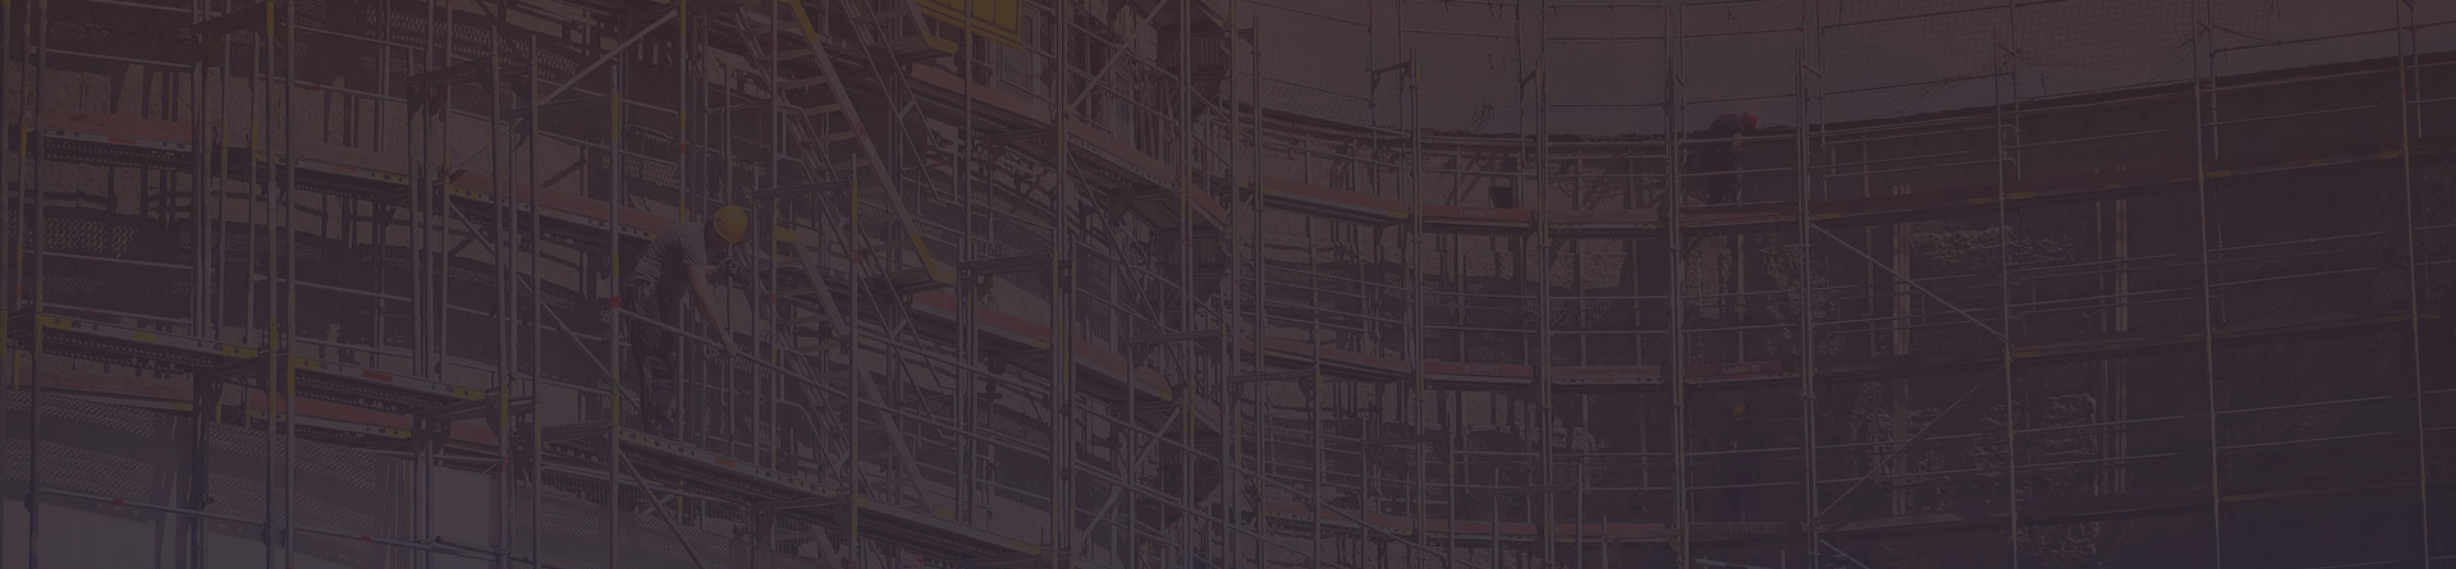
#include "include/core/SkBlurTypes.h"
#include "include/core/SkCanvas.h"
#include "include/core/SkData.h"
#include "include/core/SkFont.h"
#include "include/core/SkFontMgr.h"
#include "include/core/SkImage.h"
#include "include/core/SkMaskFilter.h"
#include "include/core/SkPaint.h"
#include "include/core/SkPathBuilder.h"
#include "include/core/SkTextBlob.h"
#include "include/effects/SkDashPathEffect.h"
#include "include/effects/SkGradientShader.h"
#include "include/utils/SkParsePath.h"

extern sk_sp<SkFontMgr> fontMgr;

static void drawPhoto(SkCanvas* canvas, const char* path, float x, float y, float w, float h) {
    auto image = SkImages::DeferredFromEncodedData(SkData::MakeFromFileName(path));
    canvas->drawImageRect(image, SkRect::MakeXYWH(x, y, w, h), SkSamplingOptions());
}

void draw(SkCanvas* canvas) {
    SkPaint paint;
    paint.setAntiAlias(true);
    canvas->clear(0xFFFFFFFF);
    drawPhoto(canvas, "assets/img1.png", 0, 0, 2456, 569);
}
